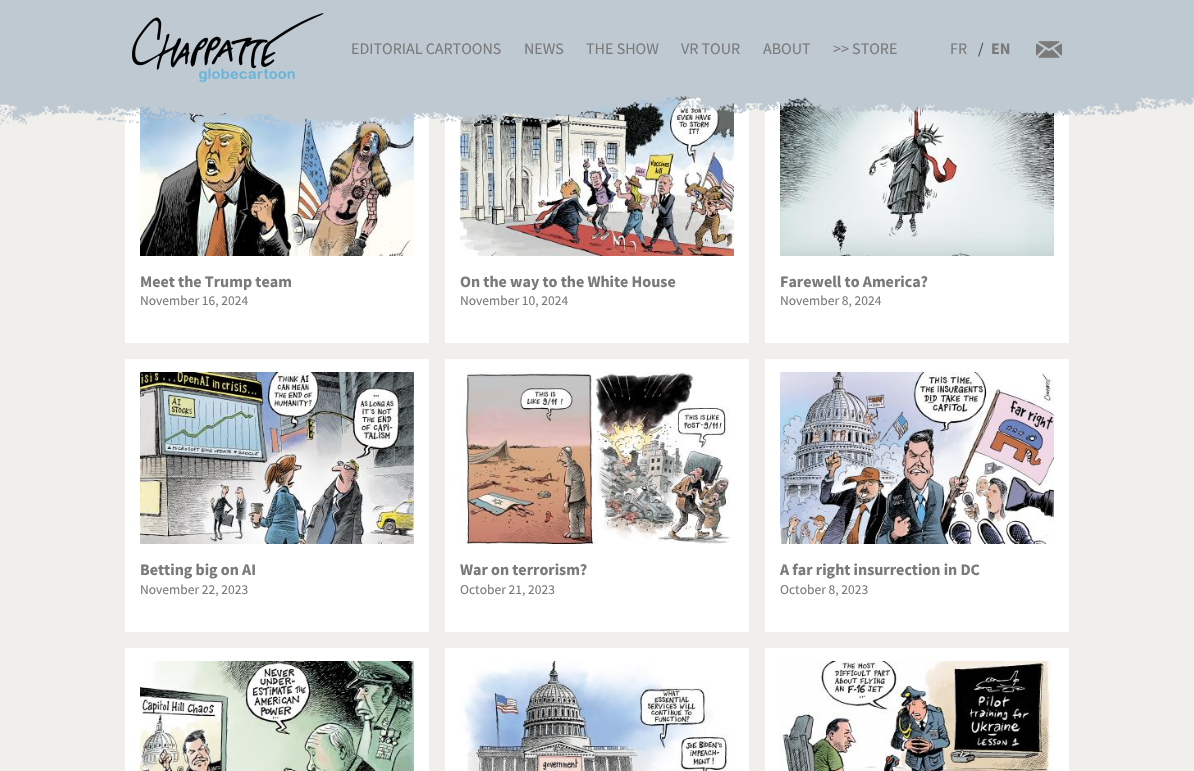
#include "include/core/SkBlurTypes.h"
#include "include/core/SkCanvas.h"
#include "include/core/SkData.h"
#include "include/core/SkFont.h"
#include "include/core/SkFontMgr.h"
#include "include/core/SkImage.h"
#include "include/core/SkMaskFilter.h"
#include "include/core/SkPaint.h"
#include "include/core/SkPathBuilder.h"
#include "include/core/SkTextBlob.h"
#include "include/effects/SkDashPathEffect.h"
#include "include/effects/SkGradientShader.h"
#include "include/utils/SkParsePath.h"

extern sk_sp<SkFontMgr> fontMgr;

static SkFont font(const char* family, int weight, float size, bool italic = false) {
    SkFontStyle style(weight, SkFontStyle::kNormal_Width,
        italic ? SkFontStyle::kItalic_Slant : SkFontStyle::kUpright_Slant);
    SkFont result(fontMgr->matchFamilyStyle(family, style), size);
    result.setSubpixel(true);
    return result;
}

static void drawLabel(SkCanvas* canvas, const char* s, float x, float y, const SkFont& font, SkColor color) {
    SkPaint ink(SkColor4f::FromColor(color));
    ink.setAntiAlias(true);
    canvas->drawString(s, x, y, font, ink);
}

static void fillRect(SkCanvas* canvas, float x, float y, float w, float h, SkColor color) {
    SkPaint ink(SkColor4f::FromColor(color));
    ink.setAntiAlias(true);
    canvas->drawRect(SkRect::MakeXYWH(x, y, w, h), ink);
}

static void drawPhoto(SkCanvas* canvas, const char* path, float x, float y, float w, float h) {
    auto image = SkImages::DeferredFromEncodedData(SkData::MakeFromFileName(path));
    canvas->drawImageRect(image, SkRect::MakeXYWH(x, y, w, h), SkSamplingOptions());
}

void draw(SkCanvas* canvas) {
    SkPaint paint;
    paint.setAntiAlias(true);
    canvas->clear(0xFFF0EFEB);
    fillRect(canvas, 0, 0, 1194, 96, 0xFFBEC9D2);
    drawPhoto(canvas, "assets/img1.png", 132, 13, 192, 69);
    SkFont font1 = font("Source Sans Pro", 400, 16);
    drawLabel(canvas, "EDITORIAL CARTOONS", 351, 54, font1, 0xFF7A7A7A);
    drawLabel(canvas, "NEWS", 524, 54, font1, 0xFF7A7A7A);
    drawLabel(canvas, "THE SHOW", 586, 54, font1, 0xFF7A7A7A);
    drawLabel(canvas, "VR TOUR", 681, 54, font1, 0xFF7A7A7A);
    drawLabel(canvas, "ABOUT", 763, 54, font1, 0xFF7A7A7A);
    drawLabel(canvas, ">> STORE", 833, 54, font1, 0xFF7A7A7A);
    drawLabel(canvas, "FR", 950, 54, font1, 0xFF7A7A7A);
    drawLabel(canvas, "/", 978, 54, font1, 0xFF484848);
    SkFont font2 = font("Source Sans Pro", 700, 16);
    drawLabel(canvas, "EN", 991, 54, font2, 0xFF7A7A7A);
    drawPhoto(canvas, "assets/img2.png", 1036, 41, 26, 17);
    fillRect(canvas, 125, 107, 304, 236, 0xFFFFFFFF);
    drawPhoto(canvas, "assets/img4.png", 140, 107, 274, 149);
    fillRect(canvas, 445, 103, 304, 240, 0xFFFFFFFF);
    drawPhoto(canvas, "assets/img5.png", 460, 96, 274, 160);
    fillRect(canvas, 765, 101, 304, 242, 0xFFFFFFFF);
    drawPhoto(canvas, "assets/img6.png", 780, 97, 274, 159);
    drawPhoto(canvas, "assets/img3.png", 0, 96, 1194, 35);
    drawLabel(canvas, "Meet the Trump team", 140, 287, font2, 0xFF7A7A7A);
    SkFont font3 = font("Source Sans Pro", 400, 13.5f);
    drawLabel(canvas, "November 16, 2024", 140, 305, font3, 0xFF7A7A7A);
    drawLabel(canvas, "On the way to the White House", 460, 287, font2, 0xFF7A7A7A);
    drawLabel(canvas, "November 10, 2024", 460, 305, font3, 0xFF7A7A7A);
    drawLabel(canvas, "Farewell to America?", 780, 287, font2, 0xFF7A7A7A);
    drawLabel(canvas, "November 8, 2024", 780, 305, font3, 0xFF7A7A7A);
    fillRect(canvas, 125, 359, 304, 273, 0xFFFFFFFF);
    drawPhoto(canvas, "assets/img7.png", 140, 372, 274, 172);
    drawLabel(canvas, "Betting big on AI", 140, 575, font2, 0xFF7A7A7A);
    drawLabel(canvas, "November 22, 2023", 140, 594, font3, 0xFF7A7A7A);
    fillRect(canvas, 445, 359, 304, 273, 0xFFFFFFFF);
    drawPhoto(canvas, "assets/img8.png", 460, 372, 271, 172);
    drawLabel(canvas, "War on terrorism?", 460, 575, font2, 0xFF7A7A7A);
    drawLabel(canvas, "October 21, 2023", 460, 594, font3, 0xFF7A7A7A);
    fillRect(canvas, 765, 359, 304, 273, 0xFFFFFFFF);
    drawPhoto(canvas, "assets/img9.png", 780, 372, 274, 172);
    drawLabel(canvas, "A far right insurrection in DC", 780, 575, font2, 0xFF7A7A7A);
    drawLabel(canvas, "October 8, 2023", 780, 594, font3, 0xFF7A7A7A);
    fillRect(canvas, 125, 648, 304, 123, 0xFFFFFFFF);
    drawPhoto(canvas, "assets/img10.png", 140, 661, 274, 110);
    fillRect(canvas, 445, 648, 304, 123, 0xFFFFFFFF);
    drawPhoto(canvas, "assets/img11.png", 460, 661, 269, 110);
    fillRect(canvas, 765, 648, 304, 123, 0xFFFFFFFF);
    drawPhoto(canvas, "assets/img12.png", 780, 661, 273, 110);
}
